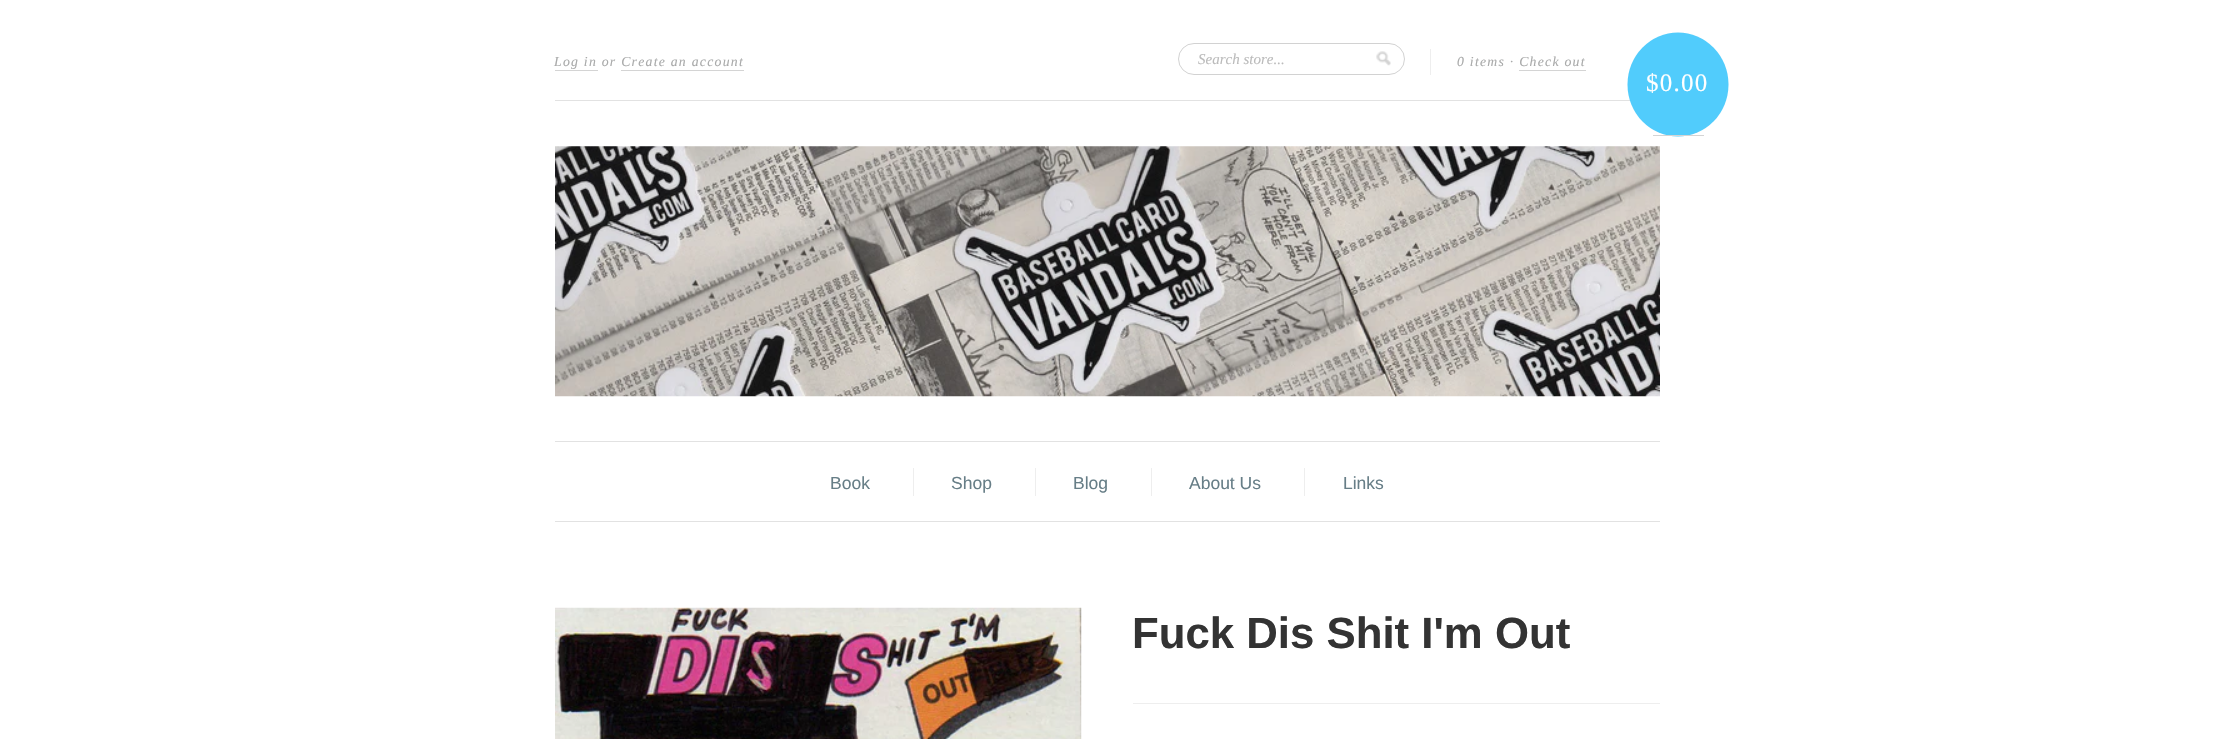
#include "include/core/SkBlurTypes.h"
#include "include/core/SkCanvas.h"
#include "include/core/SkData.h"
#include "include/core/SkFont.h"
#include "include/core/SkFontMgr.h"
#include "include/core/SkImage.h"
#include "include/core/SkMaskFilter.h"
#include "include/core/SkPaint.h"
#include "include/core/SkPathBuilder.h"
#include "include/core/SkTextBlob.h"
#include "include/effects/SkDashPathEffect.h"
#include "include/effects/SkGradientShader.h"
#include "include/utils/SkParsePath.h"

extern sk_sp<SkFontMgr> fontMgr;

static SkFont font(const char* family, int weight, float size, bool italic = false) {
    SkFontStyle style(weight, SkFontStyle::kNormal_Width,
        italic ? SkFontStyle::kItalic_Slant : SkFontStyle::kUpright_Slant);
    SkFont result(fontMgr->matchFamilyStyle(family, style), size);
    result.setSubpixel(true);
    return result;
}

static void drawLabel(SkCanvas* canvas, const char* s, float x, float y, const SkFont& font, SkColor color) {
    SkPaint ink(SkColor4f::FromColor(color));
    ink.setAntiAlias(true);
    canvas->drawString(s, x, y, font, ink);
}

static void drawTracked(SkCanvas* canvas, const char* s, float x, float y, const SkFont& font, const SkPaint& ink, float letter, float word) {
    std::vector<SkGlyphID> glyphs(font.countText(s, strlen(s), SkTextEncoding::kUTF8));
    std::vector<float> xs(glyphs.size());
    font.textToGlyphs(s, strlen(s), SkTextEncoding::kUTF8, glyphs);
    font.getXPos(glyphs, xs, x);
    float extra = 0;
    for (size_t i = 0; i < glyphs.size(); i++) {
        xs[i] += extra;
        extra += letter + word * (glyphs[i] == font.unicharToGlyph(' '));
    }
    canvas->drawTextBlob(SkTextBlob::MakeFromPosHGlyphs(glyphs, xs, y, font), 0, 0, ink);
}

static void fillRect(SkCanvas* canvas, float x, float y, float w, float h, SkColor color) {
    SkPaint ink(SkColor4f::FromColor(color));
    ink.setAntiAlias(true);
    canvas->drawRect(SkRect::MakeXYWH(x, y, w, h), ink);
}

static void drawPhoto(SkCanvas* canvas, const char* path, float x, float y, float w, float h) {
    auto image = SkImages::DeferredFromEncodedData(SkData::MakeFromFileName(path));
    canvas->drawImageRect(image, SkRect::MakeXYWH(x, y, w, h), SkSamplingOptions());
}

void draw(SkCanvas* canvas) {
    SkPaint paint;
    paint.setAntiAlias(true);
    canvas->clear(0xFFFFFFFF);
    fillRect(canvas, 555, 521, 1105, 1, 0xFFE2E2E2);
    fillRect(canvas, 555, 100, 1076, 1, 0xFFE2E2E2);
    SkFont font1 = font("Liberation Serif", 400, 13.75f, true);
    paint.setColor(0xFFA9AAAA);
    drawTracked(canvas, "Log in or Create an account", 554, 66, font1, paint, 1.25f, 0);
    fillRect(canvas, 555, 70, 43, 1, 0xFFD4D4D4);
    fillRect(canvas, 621, 70, 123, 1, 0xFFD4D4D4);
    paint.setStroke(true);
    paint.setStrokeWidth(1);
    paint.setColor(0xFFD2D2D2);
    canvas->drawRoundRect(SkRect::MakeXYWH(1178.5f, 43.5f, 226, 31), 15.5f, 15.5f, paint);
    SkFont font2 = font("Liberation Serif", 400, 15, true);
    drawLabel(canvas, "Search store...", 1198, 64, font2, 0xFFBBBBBB);
    drawPhoto(canvas, "assets/img1.png", 1376, 51, 15, 15);
    fillRect(canvas, 1430, 49, 1, 26, 0xFFEEEEEE);
    paint.setStroke(false);
    paint.setColor(0xFFA9AAAA);
    drawTracked(canvas, "0 items · Check out", 1457, 66, font1, paint, 1.25f, 0);
    fillRect(canvas, 1519, 70, 67, 1, 0xFFD4D4D4);
    paint.setColor(0xFF51CCFC);
    canvas->drawOval(SkRect::MakeXYWH(1627.5f, 32.5f, 101, 104), paint);
    fillRect(canvas, 1653, 135, 51, 1, 0xFFD4D4D4);
    SkFont font3 = font("Liberation Serif", 400, 25);
    paint.setColor(0xFFFFFFFF);
    drawTracked(canvas, "$0.00", 1646, 91, font3, paint, 1.25f, 0);
    drawPhoto(canvas, "assets/img2.png", 555, 146, 1105, 251);
    fillRect(canvas, 555, 441, 1105, 1, 0xFFE2E2E2);
    SkFont font4 = font("Liberation Sans", 400, 17.5f);
    drawLabel(canvas, "Book", 830, 489, font4, 0xFF677E87);
    fillRect(canvas, 913, 468, 1, 28, 0xFFEEEEEE);
    drawLabel(canvas, "Shop", 951, 489, font4, 0xFF677E87);
    fillRect(canvas, 1035, 468, 1, 28, 0xFFEEEEEE);
    drawLabel(canvas, "Blog", 1073, 489, font4, 0xFF677E87);
    fillRect(canvas, 1151, 468, 1, 28, 0xFFEEEEEE);
    drawLabel(canvas, "About Us", 1189, 489, font4, 0xFF677E87);
    fillRect(canvas, 1304, 468, 1, 28, 0xFFEEEEEE);
    drawLabel(canvas, "Links", 1343, 489, font4, 0xFF677E87);
    drawPhoto(canvas, "assets/img3.png", 555, 607, 527, 132);
    fillRect(canvas, 1133, 703, 527, 1, 0xFFEEEEEE);
    SkFont font5 = font("Liberation Sans", 700, 43.75f);
    drawLabel(canvas, "Fuck Dis Shit I'm Out", 1132, 648, font5, 0xFF333333);
}
